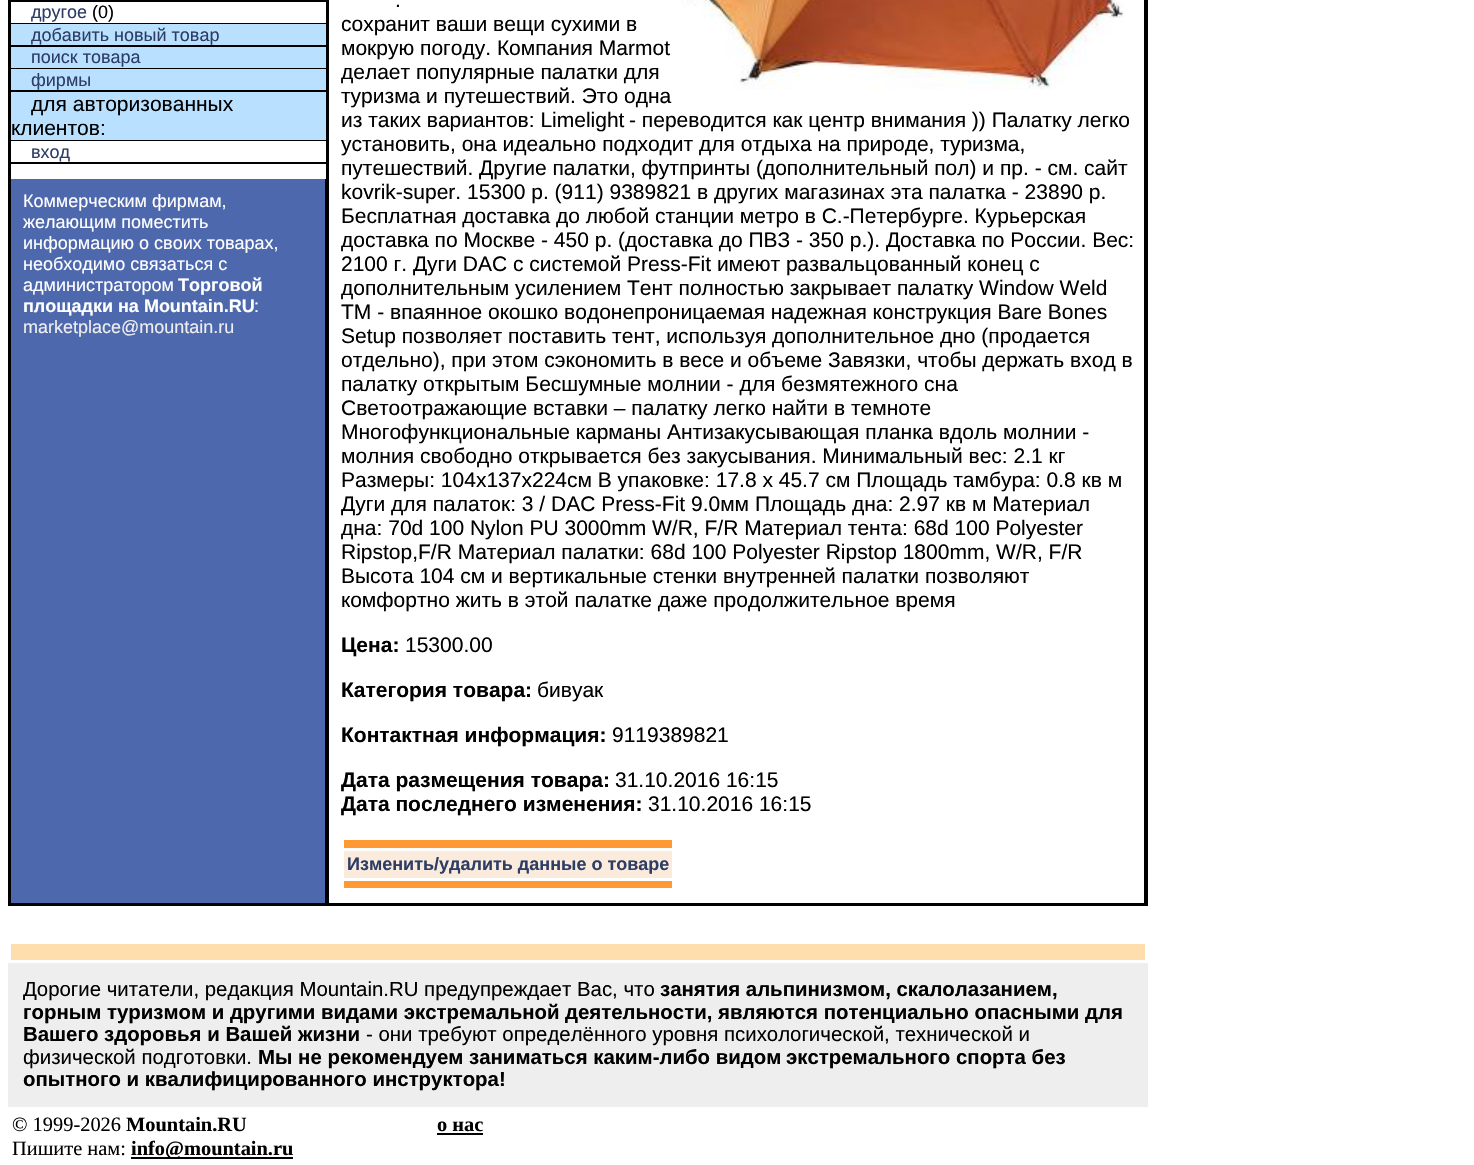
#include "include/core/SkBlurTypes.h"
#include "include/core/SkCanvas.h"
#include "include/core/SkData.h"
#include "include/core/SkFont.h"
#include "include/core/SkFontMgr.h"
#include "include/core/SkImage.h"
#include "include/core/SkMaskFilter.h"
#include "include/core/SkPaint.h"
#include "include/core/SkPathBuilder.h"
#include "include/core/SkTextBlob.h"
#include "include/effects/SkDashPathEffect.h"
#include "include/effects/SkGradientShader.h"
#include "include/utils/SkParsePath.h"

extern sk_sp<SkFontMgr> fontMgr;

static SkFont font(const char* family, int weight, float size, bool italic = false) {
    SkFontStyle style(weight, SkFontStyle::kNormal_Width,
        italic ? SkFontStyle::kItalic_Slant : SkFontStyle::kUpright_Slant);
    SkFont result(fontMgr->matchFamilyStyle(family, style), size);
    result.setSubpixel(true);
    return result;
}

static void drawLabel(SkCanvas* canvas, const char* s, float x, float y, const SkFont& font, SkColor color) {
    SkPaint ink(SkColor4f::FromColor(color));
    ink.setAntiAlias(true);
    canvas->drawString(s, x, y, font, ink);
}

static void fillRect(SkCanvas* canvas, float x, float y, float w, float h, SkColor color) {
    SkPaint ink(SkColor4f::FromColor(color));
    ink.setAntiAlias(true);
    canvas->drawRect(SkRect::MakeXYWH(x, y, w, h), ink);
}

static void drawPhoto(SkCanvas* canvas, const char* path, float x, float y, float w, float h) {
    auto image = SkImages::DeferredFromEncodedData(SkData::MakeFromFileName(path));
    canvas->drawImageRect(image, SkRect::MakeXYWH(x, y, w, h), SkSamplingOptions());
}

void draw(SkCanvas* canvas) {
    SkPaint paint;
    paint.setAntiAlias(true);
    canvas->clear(0xFFFFFFFF);
    paint.setStroke(true);
    paint.setStrokeWidth(2);
    paint.setColor(0xFF000000);
    canvas->drawRect(SkRect::MakeXYWH(9, -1, 1138, 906), paint);
    fillRect(canvas, 11, 179, 314, 724, 0xFF4D68AD);
    canvas->drawRect(SkRect::MakeXYWH(10, -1, 316, 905), paint);
    fillRect(canvas, 11, 0, 315, 2, 0xFF000000);
    fillRect(canvas, 325, 2, 1, 21, 0xFFFFFFFF);
    SkFont font1 = font("Liberation Sans", 400, 18);
    drawLabel(canvas, "другое", 31, 18, font1, 0xFF2D3D65);
    drawLabel(canvas, "(0)", 92, 18, font1, 0xFF000000);
    fillRect(canvas, 11, 23, 315, 1, 0xFF000000);
    fillRect(canvas, 11, 24, 315, 21, 0xFFB9E1FF);
    drawLabel(canvas, "добавить новый товар", 31, 41, font1, 0xFF2D3D65);
    fillRect(canvas, 11, 45, 315, 2, 0xFF000000);
    fillRect(canvas, 11, 47, 315, 21, 0xFFB9E1FF);
    drawLabel(canvas, "поиск товара", 31, 63, font1, 0xFF2D3D65);
    fillRect(canvas, 11, 68, 315, 1, 0xFF000000);
    fillRect(canvas, 11, 69, 315, 21, 0xFFB9E1FF);
    drawLabel(canvas, "фирмы", 31, 86, font1, 0xFF2D3D65);
    fillRect(canvas, 11, 90, 315, 2, 0xFF000000);
    fillRect(canvas, 11, 92, 315, 48, 0xFFB9E1FF);
    SkFont font2 = font("Liberation Sans", 400, 21);
    drawLabel(canvas, "для авторизованных", 31, 111, font2, 0xFF000000);
    drawLabel(canvas, "клиентов:", 11, 135, font2, 0xFF000000);
    fillRect(canvas, 11, 140, 315, 1, 0xFF000000);
    fillRect(canvas, 325, 141, 1, 21, 0xFFFFFFFF);
    drawLabel(canvas, "вход", 31, 158, font1, 0xFF2D3D65);
    fillRect(canvas, 11, 162, 315, 2, 0xFF000000);
    fillRect(canvas, 325, 164, 1, 15, 0xFFFFFFFF);
    drawLabel(canvas, "Коммерческим фирмам,", 23, 207, font1, 0xFFFFFFFF);
    drawLabel(canvas, "желающим поместить", 23, 228, font1, 0xFFFFFFFF);
    drawLabel(canvas, "информацию о своих товарах,", 23, 249, font1, 0xFFFFFFFF);
    drawLabel(canvas, "необходимо связаться с", 23, 270, font1, 0xFFFFFFFF);
    drawLabel(canvas, "администратором", 23, 291, font1, 0xFFFFFFFF);
    SkFont font3 = font("Liberation Sans", 700, 18);
    drawLabel(canvas, "Торговой", 178, 291, font3, 0xFFFFFFFF);
    drawLabel(canvas, "площадки на Mountain.RU", 23, 312, font3, 0xFFFFFFFF);
    drawLabel(canvas, ":", 254, 312, font1, 0xFFFFFFFF);
    drawLabel(canvas, "marketplace@mountain.ru", 23, 333, font1, 0xFFEEEEEE);
    canvas->drawRect(SkRect::MakeXYWH(328, -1, 817, 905), paint);
    drawPhoto(canvas, "assets/img1.png", 681, 0, 443, 90);
    drawLabel(canvas, ".", 395, 7, font2, 0xFF000000);
    drawLabel(canvas, "сохранит ваши вещи сухими в", 341, 31, font2, 0xFF000000);
    drawLabel(canvas, "мокрую погоду. Компания Marmot", 341, 55, font2, 0xFF000000);
    drawLabel(canvas, "делает популярные палатки для", 341, 79, font2, 0xFF000000);
    drawLabel(canvas, "туризма и путешествий. Это одна", 341, 103, font2, 0xFF000000);
    drawLabel(canvas, "из таких вариантов: Limelight", 341, 127, font2, 0xFF000000);
    drawLabel(canvas, "- переводится как центр внимания )) Палатку легко", 629, 127, font2, 0xFF000000);
    drawLabel(canvas, "установить, она идеально подходит для отдыха на природе, туризма,", 341, 151, font2, 0xFF000000);
    drawLabel(canvas, "путешествий. Другие палатки, футпринты (дополнительный пол) и пр. - см. сайт", 341, 175, font2, 0xFF000000);
    drawLabel(canvas, "kovrik-super. 15300 р. (911) 9389821 в других магазинах эта палатка - 23890 р.", 341, 199, font2, 0xFF000000);
    drawLabel(canvas, "Бесплатная доставка до любой станции метро в С.-Петербурге. Курьерская", 341, 223, font2, 0xFF000000);
    drawLabel(canvas, "доставка по Москве - 450 р. (доставка до ПВЗ - 350 р.). Доставка по России. Вес:", 341, 247, font2, 0xFF000000);
    drawLabel(canvas, "2100 г. Дуги DAC с системой Press-Fit имеют развальцованный конец с", 341, 271, font2, 0xFF000000);
    drawLabel(canvas, "дополнительным усилением Тент полностью закрывает палатку Window Weld", 341, 295, font2, 0xFF000000);
    drawLabel(canvas, "TM - впаянное окошко водонепроницаемая надежная конструкция Bare Bones", 341, 319, font2, 0xFF000000);
    drawLabel(canvas, "Setup позволяет поставить тент, используя дополнительное дно (продается", 341, 343, font2, 0xFF000000);
    drawLabel(canvas, "отдельно), при этом сэкономить в весе и объеме Завязки, чтобы держать вход в", 341, 367, font2, 0xFF000000);
    drawLabel(canvas, "палатку открытым Бесшумные молнии - для безмятежного сна", 341, 391, font2, 0xFF000000);
    drawLabel(canvas, "Светоотражающие вставки – палатку легко найти в темноте", 341, 415, font2, 0xFF000000);
    drawLabel(canvas, "Многофункциональные карманы Антизакусывающая планка вдоль молнии -", 341, 439, font2, 0xFF000000);
    drawLabel(canvas, "молния свободно открывается без закусывания. Минимальный вес: 2.1 кг", 341, 463, font2, 0xFF000000);
    drawLabel(canvas, "Размеры: 104x137x224см В упаковке: 17.8 x 45.7 см Площадь тамбура: 0.8 кв м", 341, 487, font2, 0xFF000000);
    drawLabel(canvas, "Дуги для палаток: 3 / DAC Press-Fit 9.0мм Площадь дна: 2.97 кв м Материал", 341, 511, font2, 0xFF000000);
    drawLabel(canvas, "дна: 70d 100 Nylon PU 3000mm W/R, F/R Материал тента: 68d 100 Polyester", 341, 535, font2, 0xFF000000);
    drawLabel(canvas, "Ripstop,F/R Материал палатки: 68d 100 Polyester Ripstop 1800mm, W/R, F/R", 341, 559, font2, 0xFF000000);
    drawLabel(canvas, "Высота 104 см и вертикальные стенки внутренней палатки позволяют", 341, 583, font2, 0xFF000000);
    drawLabel(canvas, "комфортно жить в этой палатке даже продолжительное время", 341, 607, font2, 0xFF000000);
    SkFont font4 = font("Liberation Sans", 700, 21);
    drawLabel(canvas, "Цена:", 341, 652, font4, 0xFF000000);
    drawLabel(canvas, "15300.00", 405, 652, font2, 0xFF000000);
    drawLabel(canvas, "Категория товара:", 341, 697, font4, 0xFF000000);
    drawLabel(canvas, "бивуак", 537, 697, font2, 0xFF000000);
    drawLabel(canvas, "Контактная информация:", 341, 742, font4, 0xFF000000);
    drawLabel(canvas, "9119389821", 612, 742, font2, 0xFF000000);
    drawLabel(canvas, "Дата размещения товара:", 341, 787, font4, 0xFF000000);
    drawLabel(canvas, "31.10.2016 16:15", 615, 787, font2, 0xFF000000);
    drawLabel(canvas, "Дата последнего изменения:", 341, 811, font4, 0xFF000000);
    drawLabel(canvas, "31.10.2016 16:15", 648, 811, font2, 0xFF000000);
    fillRect(canvas, 344, 840, 328, 8, 0xFFFF9933);
    fillRect(canvas, 344, 851, 328, 27, 0xFFFAEBDC);
    drawLabel(canvas, "Изменить/удалить данные о товаре", 347, 870, font3, 0xFF2D3D65);
    fillRect(canvas, 344, 881, 328, 7, 0xFFFF9933);
    fillRect(canvas, 11, 944, 1134, 16, 0xFFFFDEAD);
    fillRect(canvas, 8, 963, 1140, 144, 0xFFEEEEEE);
    SkFont font5 = font("Liberation Sans", 400, 20.4f);
    drawLabel(canvas, "Дорогие читатели, редакция Mountain.RU предупреждает Вас, что", 23, 996, font5, 0xFF000000);
    SkFont font6 = font("Liberation Sans", 700, 20.4f);
    drawLabel(canvas, "занятия альпинизмом, скалолазанием,", 660, 996, font6, 0xFF000000);
    drawLabel(canvas, "горным туризмом и другими видами экстремальной", 23, 1019, font6, 0xFF000000);
    drawLabel(canvas, "деятельности, являются потенциально опасными для", 565, 1019, font6, 0xFF000000);
    drawLabel(canvas, "Вашего здоровья и Вашей", 23, 1041, font6, 0xFF000000);
    drawLabel(canvas, "жизни", 298, 1041, font6, 0xFF000000);
    drawLabel(canvas, "- они требуют определённого уровня психологической, технической и", 366, 1041, font5, 0xFF000000);
    drawLabel(canvas, "физической подготовки.", 23, 1064, font5, 0xFF000000);
    drawLabel(canvas, "Мы не рекомендуем заниматься каким-либо видом", 258, 1064, font6, 0xFF000000);
    drawLabel(canvas, "экстремального спорта без", 786, 1064, font6, 0xFF000000);
    drawLabel(canvas, "опытного и квалифицированного инструктора!", 23, 1086, font6, 0xFF000000);
    SkFont font7 = font("Liberation Serif", 400, 20.4f);
    drawLabel(canvas, "© 1999-2026", 12, 1131, font7, 0xFF000000);
    SkFont font8 = font("Liberation Serif", 700, 20.4f);
    drawLabel(canvas, "Mountain.RU", 126, 1131, font8, 0xFF000000);
    drawLabel(canvas, "Пишите нам:", 12, 1155, font7, 0xFF000000);
    fillRect(canvas, 131, 1157, 162, 2, 0xFF000000);
    drawLabel(canvas, "info@mountain.ru", 131, 1155, font8, 0xFF000000);
    drawLabel(canvas, "о нас", 437, 1131, font8, 0xFF000000);
    fillRect(canvas, 437, 1133, 46, 2, 0xFF000000);
}
